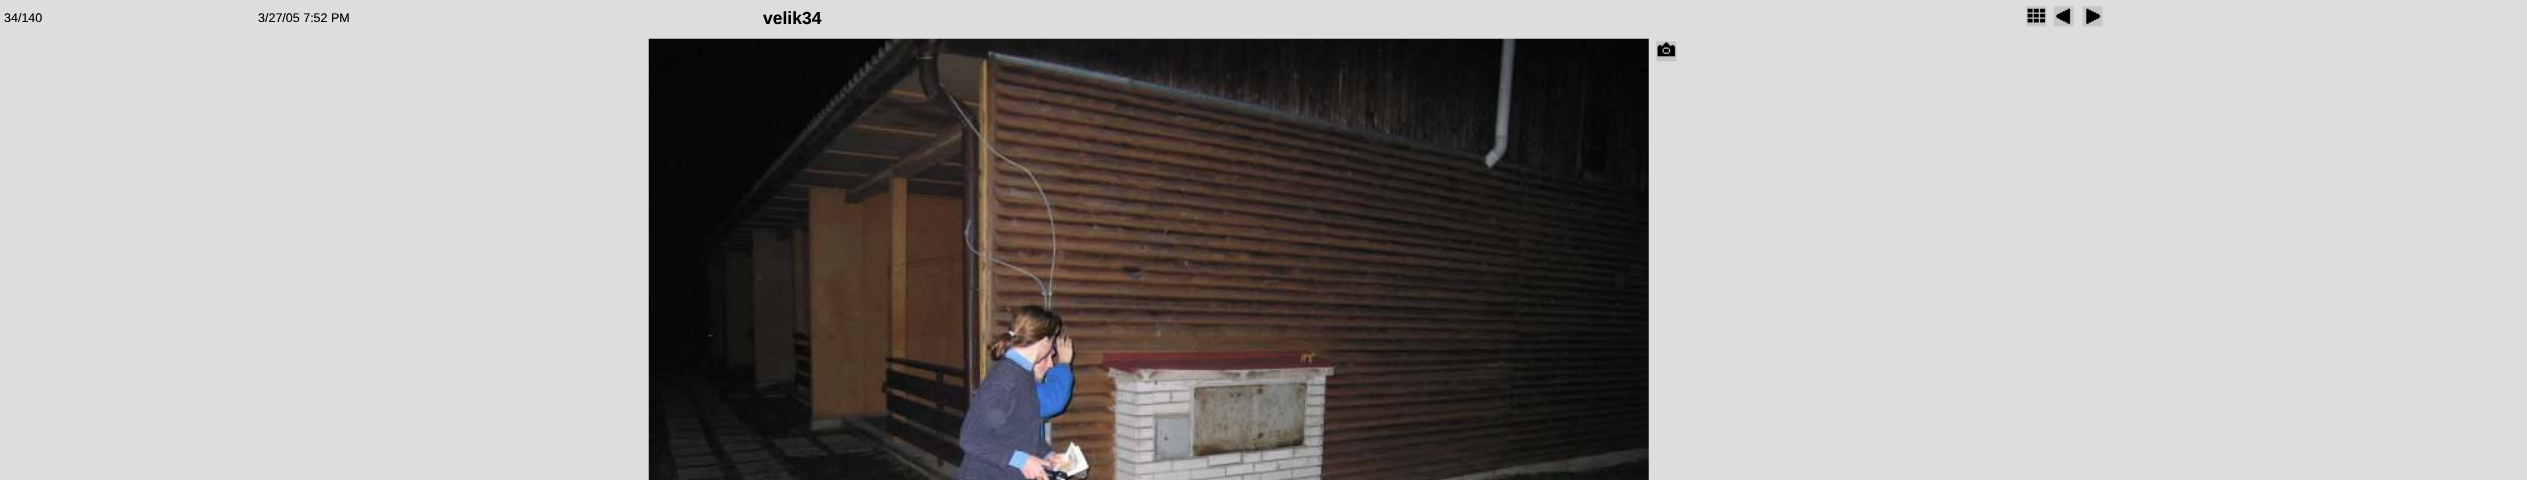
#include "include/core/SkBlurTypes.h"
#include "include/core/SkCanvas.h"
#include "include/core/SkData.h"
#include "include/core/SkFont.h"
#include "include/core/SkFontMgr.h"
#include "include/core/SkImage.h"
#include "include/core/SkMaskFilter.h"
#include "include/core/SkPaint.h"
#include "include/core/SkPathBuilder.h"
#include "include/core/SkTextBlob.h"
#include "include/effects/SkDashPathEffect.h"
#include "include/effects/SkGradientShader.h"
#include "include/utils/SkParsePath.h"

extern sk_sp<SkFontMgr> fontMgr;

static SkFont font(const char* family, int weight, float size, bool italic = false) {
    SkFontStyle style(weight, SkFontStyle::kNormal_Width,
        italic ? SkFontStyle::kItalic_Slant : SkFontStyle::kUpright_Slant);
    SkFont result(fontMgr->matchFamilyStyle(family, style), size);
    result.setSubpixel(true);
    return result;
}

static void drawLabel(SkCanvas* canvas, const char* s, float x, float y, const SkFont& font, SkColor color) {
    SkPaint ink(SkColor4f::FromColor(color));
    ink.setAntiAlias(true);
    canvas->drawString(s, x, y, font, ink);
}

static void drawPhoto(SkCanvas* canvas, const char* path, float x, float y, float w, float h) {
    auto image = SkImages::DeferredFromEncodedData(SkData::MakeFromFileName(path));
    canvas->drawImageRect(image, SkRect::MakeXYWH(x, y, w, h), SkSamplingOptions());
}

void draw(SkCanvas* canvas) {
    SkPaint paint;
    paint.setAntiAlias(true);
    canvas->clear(0xFFDDDDDD);
    SkFont font1 = font("Liberation Sans", 400, 12.5f);
    drawLabel(canvas, "34/140", 4, 22, font1, 0xFF000000);
    drawLabel(canvas, "3/27/05 7:52 PM", 258, 22, font1, 0xFF000000);
    SkFont font2 = font("Liberation Sans", 700, 17.5f);
    drawLabel(canvas, "velik34", 763, 24, font2, 0xFF000000);
    drawPhoto(canvas, "assets/img1.png", 2026, 6, 21, 21);
    drawPhoto(canvas, "assets/img2.png", 2053, 6, 21, 21);
    drawPhoto(canvas, "assets/img3.png", 2082, 6, 21, 21);
    drawPhoto(canvas, "assets/img4.png", 648, 38, 1001, 442);
    drawPhoto(canvas, "assets/img5.png", 1656, 41, 21, 21);
}
